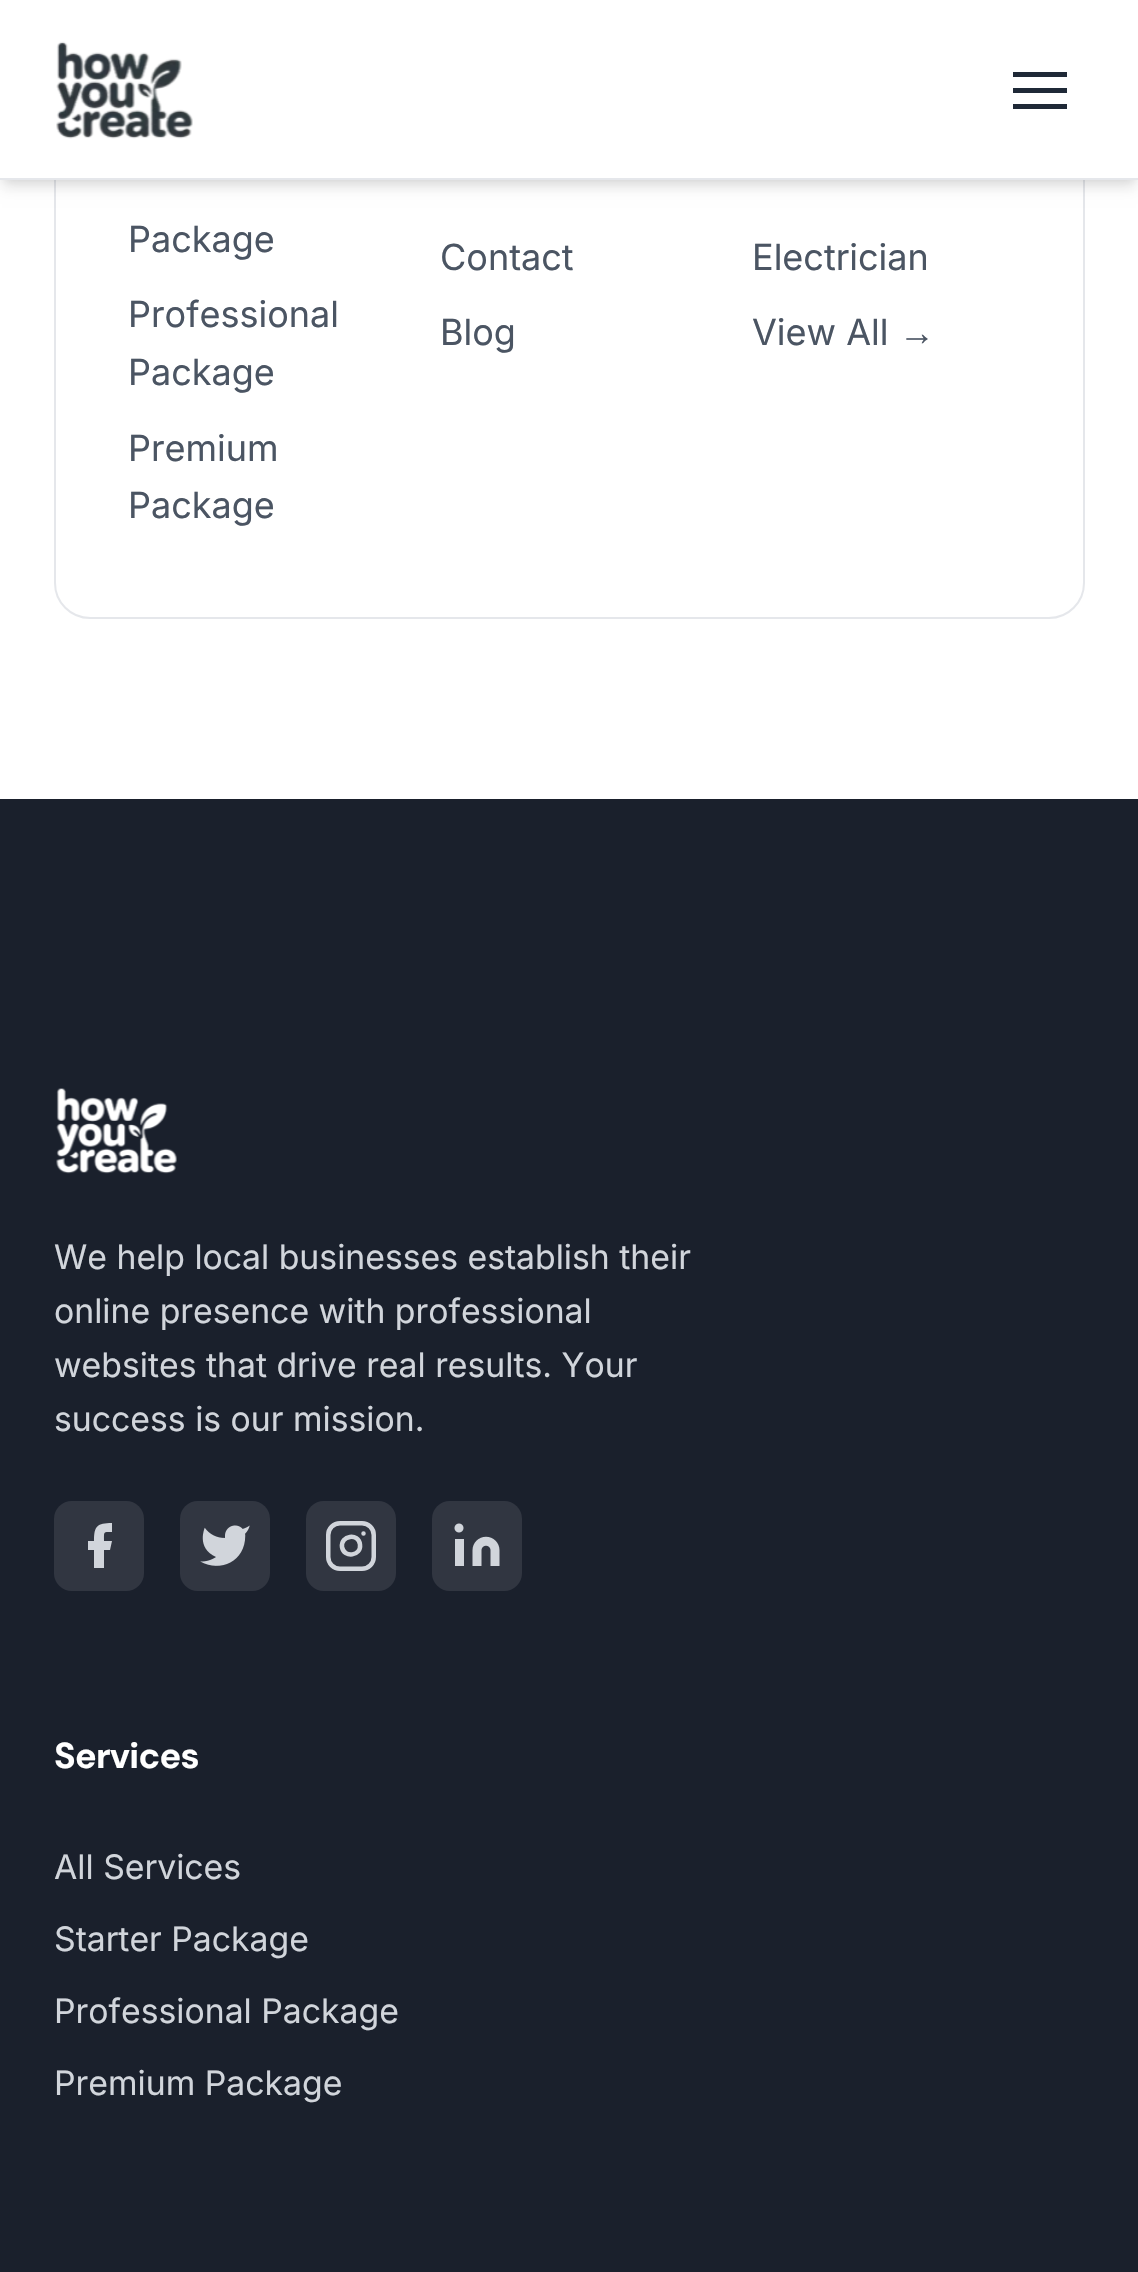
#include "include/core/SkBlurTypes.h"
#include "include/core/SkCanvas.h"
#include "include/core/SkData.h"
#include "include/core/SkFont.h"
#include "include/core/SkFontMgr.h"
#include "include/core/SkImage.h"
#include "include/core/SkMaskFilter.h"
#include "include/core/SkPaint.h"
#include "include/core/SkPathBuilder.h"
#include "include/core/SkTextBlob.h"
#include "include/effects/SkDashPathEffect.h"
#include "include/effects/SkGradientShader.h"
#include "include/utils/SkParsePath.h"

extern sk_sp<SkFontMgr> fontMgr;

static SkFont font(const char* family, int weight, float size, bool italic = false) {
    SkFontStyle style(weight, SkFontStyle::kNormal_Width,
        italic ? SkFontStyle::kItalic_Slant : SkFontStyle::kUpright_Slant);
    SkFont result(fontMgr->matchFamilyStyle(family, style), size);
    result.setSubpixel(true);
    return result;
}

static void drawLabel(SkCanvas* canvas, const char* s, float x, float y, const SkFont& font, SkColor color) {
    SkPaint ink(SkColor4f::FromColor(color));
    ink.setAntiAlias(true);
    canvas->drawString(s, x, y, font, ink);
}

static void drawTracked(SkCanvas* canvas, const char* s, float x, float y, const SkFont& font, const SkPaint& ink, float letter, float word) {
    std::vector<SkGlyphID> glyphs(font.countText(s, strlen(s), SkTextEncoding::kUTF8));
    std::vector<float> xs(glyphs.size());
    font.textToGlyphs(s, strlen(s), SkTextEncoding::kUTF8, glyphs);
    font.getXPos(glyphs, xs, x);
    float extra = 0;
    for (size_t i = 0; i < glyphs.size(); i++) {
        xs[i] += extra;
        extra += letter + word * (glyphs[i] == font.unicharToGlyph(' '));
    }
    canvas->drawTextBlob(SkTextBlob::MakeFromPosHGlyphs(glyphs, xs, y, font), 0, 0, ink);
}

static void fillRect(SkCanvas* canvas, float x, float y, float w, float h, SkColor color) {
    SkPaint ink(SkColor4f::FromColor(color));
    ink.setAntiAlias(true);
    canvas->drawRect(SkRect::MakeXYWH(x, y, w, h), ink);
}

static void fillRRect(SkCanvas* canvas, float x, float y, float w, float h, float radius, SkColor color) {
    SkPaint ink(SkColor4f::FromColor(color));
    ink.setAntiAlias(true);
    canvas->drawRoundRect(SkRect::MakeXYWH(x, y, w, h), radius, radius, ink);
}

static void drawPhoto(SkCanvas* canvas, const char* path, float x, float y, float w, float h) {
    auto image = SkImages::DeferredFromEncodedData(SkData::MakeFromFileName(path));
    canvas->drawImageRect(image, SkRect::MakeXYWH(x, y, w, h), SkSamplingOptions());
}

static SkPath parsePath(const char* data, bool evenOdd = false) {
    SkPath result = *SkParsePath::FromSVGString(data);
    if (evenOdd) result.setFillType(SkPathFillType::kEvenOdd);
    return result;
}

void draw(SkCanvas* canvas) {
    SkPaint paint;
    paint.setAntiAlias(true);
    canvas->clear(0xFFFFFFFF);
    paint.setStroke(true);
    paint.setStrokeWidth(2);
    paint.setColor(0xFFE5E7EB);
    canvas->drawRoundRect(SkRect::MakeXYWH(55, -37, 1029, 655), 35, 35, paint);
    paint.setStroke(false);
    paint.setColor(0x1A000000);
    paint.setMaskFilter(SkMaskFilter::MakeBlur(kNormal_SkBlurStyle, 4.5f));
    canvas->drawRect(SkRect::MakeXYWH(5, 9, 1129, 171), paint);
    paint.setMaskFilter(nullptr);
    paint.setMaskFilter(SkMaskFilter::MakeBlur(kNormal_SkBlurStyle, 7));
    canvas->drawRect(SkRect::MakeXYWH(2, 11, 1134, 176), paint);
    paint.setMaskFilter(nullptr);
    fillRect(canvas, 0, 0, 1138, 178, 0xFFFFFFFF);
    fillRect(canvas, 0, 178, 1138, 2, 0xFFE5E7EB);
    drawPhoto(canvas, "assets/img1.png", 56, 41, 137, 98);
    fillRect(canvas, 1013, 72, 54, 5, 0xFF1F2937);
    fillRect(canvas, 1013, 88, 54, 5, 0xFF1F2937);
    fillRect(canvas, 1013, 104, 54, 5, 0xFF1F2937);
    SkFont font1 = font("Inter", 400, 36);
    drawLabel(canvas, "Package", 128, 252, font1, 0xFF4B5563);
    drawLabel(canvas, "Professional", 128, 327, font1, 0xFF4B5563);
    drawLabel(canvas, "Package", 128, 385, font1, 0xFF4B5563);
    drawLabel(canvas, "Premium", 128, 461, font1, 0xFF4B5563);
    drawLabel(canvas, "Package", 128, 518, font1, 0xFF4B5563);
    drawLabel(canvas, "Contact", 440, 270, font1, 0xFF4B5563);
    drawLabel(canvas, "Blog", 440, 345, font1, 0xFF4B5563);
    drawLabel(canvas, "Electrician", 752, 270, font1, 0xFF4B5563);
    drawLabel(canvas, "View All", 752, 345, font1, 0xFF4B5563);
    SkFont font2 = font("Liberation Sans", 400, 36);
    drawLabel(canvas, "→", 899, 345, font2, 0xFF4B5563);
    fillRect(canvas, 0, 799, 1138, 1473, 0xFF1A202C);
    drawPhoto(canvas, "assets/img2.png", 56, 1088, 121, 86);
    SkFont font3 = font("Inter", 400, 33.75f);
    drawLabel(canvas, "We help local businesses establish their", 54, 1269, font3, 0xFFD1D5DB);
    drawLabel(canvas, "online presence with professional", 54, 1323, font3, 0xFFD1D5DB);
    drawLabel(canvas, "websites that drive real results. Your", 54, 1377, font3, 0xFFD1D5DB);
    drawLabel(canvas, "success is our mission.", 54, 1431, font3, 0xFFD1D5DB);
    fillRRect(canvas, 54, 1501, 90, 90, 18, 0xFF313641);
    paint.setColor(0xFFD1D5DB);
    canvas->drawPath(parsePath("M112 1523C97 1523 94 1526 94 1541H88V1550H94V1568H104V1550H110L112 1541H104C104 1531 103 1532 112 1532Z"), paint);
    fillRRect(canvas, 180, 1501, 90, 90, 18, 0xFF313641);
    drawPhoto(canvas, "assets/img3.png", 200, 1525, 50, 41);
    fillRRect(canvas, 306, 1501, 90, 90, 18, 0xFF313641);
    paint.setStroke(true);
    paint.setStrokeWidth(4.5f);
    canvas->drawRoundRect(SkRect::MakeXYWH(328.25f, 1523.25f, 45.5f, 45.5f), 11.75f, 11.75f, paint);
    paint.setStrokeCap(SkPaint::kRound_Cap);
    paint.setStrokeJoin(SkPaint::kRound_Join);
    canvas->drawPath(parsePath("M360 1544.5C361.5 1556 344 1558.5 342 1547C340.5 1535.5 358.5 1532.5 360 1544.5ZM363.5 1533.5H363.5"), paint);
    fillRRect(canvas, 432, 1501, 90, 90, 18, 0xFF313641);
    drawPhoto(canvas, "assets/img4.png", 454, 1523, 46, 43);
    SkFont font4 = font("DM Sans", 700, 36);
    paint.setStroke(false);
    paint.setColor(0xFFFFFFFF);
    drawTracked(canvas, "Services", 54, 1768, font4, paint, -0.75f, 0);
    drawLabel(canvas, "All Services", 54, 1879, font3, 0xFFD1D5DB);
    drawLabel(canvas, "Starter Package", 54, 1951, font3, 0xFFD1D5DB);
    drawLabel(canvas, "Professional Package", 54, 2023, font3, 0xFFD1D5DB);
    drawLabel(canvas, "Premium Package", 54, 2095, font3, 0xFFD1D5DB);
}
